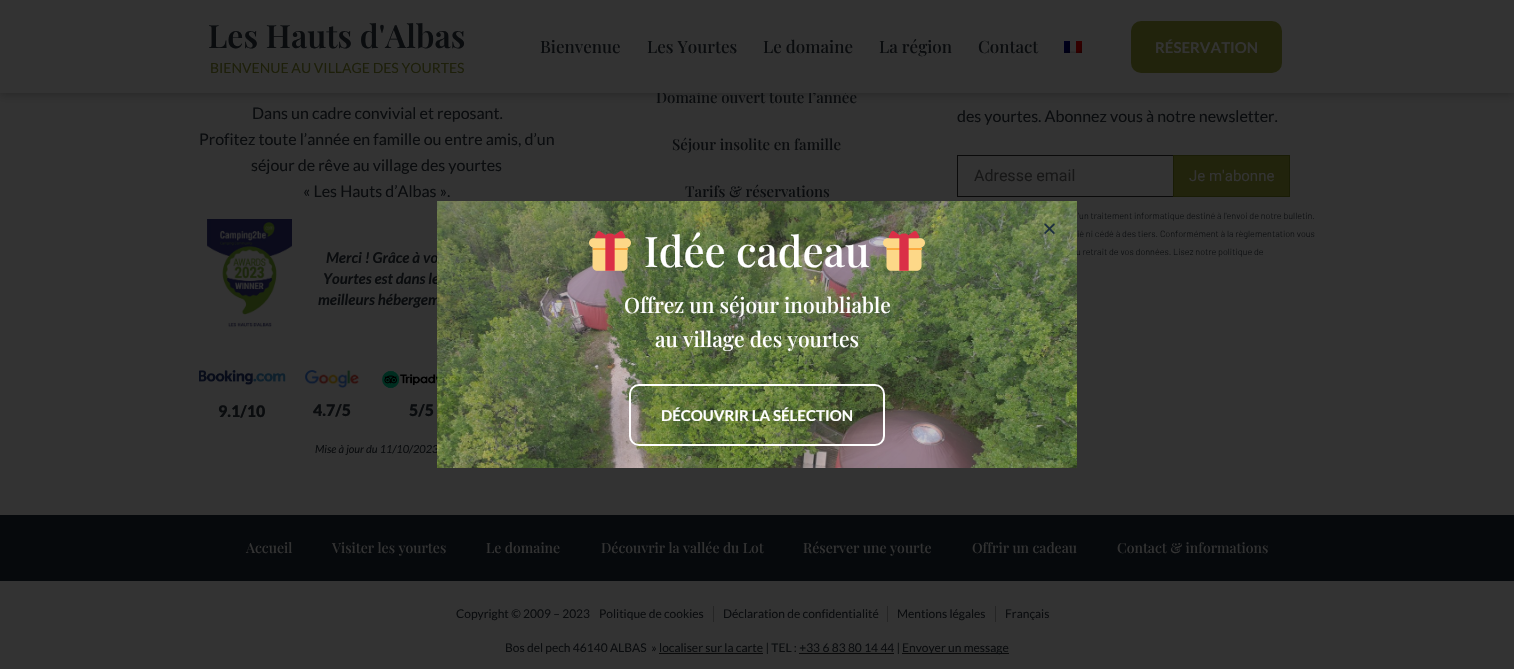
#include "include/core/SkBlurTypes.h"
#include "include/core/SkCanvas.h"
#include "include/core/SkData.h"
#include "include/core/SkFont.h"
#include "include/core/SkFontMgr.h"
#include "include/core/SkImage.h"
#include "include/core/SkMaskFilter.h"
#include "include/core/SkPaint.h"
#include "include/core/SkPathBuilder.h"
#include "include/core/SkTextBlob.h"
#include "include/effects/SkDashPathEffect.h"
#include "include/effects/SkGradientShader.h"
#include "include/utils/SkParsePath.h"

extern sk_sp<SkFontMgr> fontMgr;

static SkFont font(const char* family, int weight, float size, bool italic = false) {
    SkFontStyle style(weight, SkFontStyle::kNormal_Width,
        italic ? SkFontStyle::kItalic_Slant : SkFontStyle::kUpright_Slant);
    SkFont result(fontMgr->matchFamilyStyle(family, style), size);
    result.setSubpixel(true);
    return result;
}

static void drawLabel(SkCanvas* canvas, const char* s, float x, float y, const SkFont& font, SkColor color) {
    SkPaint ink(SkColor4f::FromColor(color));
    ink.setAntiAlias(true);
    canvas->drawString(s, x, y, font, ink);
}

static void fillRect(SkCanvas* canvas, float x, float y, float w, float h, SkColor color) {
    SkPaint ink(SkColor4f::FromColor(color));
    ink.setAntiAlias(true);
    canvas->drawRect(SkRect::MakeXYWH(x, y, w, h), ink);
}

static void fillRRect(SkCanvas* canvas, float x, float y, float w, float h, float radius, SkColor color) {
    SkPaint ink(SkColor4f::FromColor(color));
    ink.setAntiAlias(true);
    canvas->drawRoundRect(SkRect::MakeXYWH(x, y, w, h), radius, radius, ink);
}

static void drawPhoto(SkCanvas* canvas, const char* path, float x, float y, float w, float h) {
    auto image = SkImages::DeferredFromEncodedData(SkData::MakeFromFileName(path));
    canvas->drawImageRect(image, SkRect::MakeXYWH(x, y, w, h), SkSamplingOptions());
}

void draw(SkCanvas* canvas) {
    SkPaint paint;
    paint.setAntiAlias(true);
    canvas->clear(0xFF333333);
    paint.setColor(0x4F000000);
    paint.setMaskFilter(SkMaskFilter::MakeBlur(kNormal_SkBlurStyle, 5));
    canvas->drawRect(SkRect::MakeXYWH(0, 0, 1514, 93), paint);
    paint.setMaskFilter(nullptr);
    SkFont font1 = font("Playfair Display", 500, 15);
    drawLabel(canvas, "Domaine ouvert toute l’année", 656, 103, font1, 0xFF0A0C0E);
    fillRect(canvas, 0, 0, 1514, 93, 0xFF333333);
    SkFont font2 = font("Playfair Display", 600, 32);
    drawLabel(canvas, "Les Hauts d'Albas", 208, 48, font2, 0xFF0A0C0E);
    SkFont font3 = font("Lato", 400, 14);
    drawLabel(canvas, "BIENVENUE AU VILLAGE DES YOURTES", 210, 73, font3, 0xFF1D1F0A);
    SkFont font4 = font("Playfair Display", 500, 17);
    drawLabel(canvas, "Bienvenue", 540, 53, font4, 0xFF0A0C0E);
    drawLabel(canvas, "Les Yourtes", 647, 53, font4, 0xFF0A0C0E);
    drawLabel(canvas, "Le domaine", 763, 53, font4, 0xFF0A0C0E);
    drawLabel(canvas, "La région", 879, 53, font4, 0xFF0A0C0E);
    drawLabel(canvas, "Contact", 978, 53, font4, 0xFF0A0C0E);
    drawPhoto(canvas, "assets/img1.png", 1064, 41, 18, 12);
    fillRRect(canvas, 1131, 21, 151, 52, 10, 0xFF21230C);
    SkFont font5 = font("Lato", 700, 15);
    drawLabel(canvas, "RÉSERVATION", 1155, 53, font5, 0xFF333333);
    SkFont font6 = font("Lato", 400, 16);
    drawLabel(canvas, "Dans un cadre convivial et reposant.", 252, 119, font6, 0xFF0A0C0E);
    drawLabel(canvas, "Profitez toute l’année en famille ou entre amis, d’un", 199, 145, font6, 0xFF0A0C0E);
    drawLabel(canvas, "séjour de rêve au village des yourtes", 251, 171, font6, 0xFF0A0C0E);
    drawLabel(canvas, "« Les Hauts d’Albas ».", 303, 197, font6, 0xFF0A0C0E);
    drawPhoto(canvas, "assets/img2.png", 207, 219, 85, 120);
    SkFont font7 = font("Lato", 700, 15, true);
    drawLabel(canvas, "Merci ! Grâce à vo", 326, 263, font7, 0xFF0A0C0E);
    drawLabel(canvas, "Yourtes est dans le", 323, 284, font7, 0xFF0A0C0E);
    drawLabel(canvas, "meilleurs hébergem", 318, 305, font7, 0xFF0A0C0E);
    drawPhoto(canvas, "assets/img3.png", 478, 364, 69, 29);
    drawPhoto(canvas, "assets/img4.png", 199, 370, 87, 15);
    SkFont font8 = font("Lato", 900, 16);
    drawLabel(canvas, "9.1/10", 218, 417, font8, 0xFF0A0C0E);
    drawPhoto(canvas, "assets/img5.png", 305, 370, 54, 18);
    drawLabel(canvas, "4.7/5", 313, 416, font8, 0xFF0A0C0E);
    drawPhoto(canvas, "assets/img6.png", 382, 371, 80, 17);
    drawLabel(canvas, "5/5", 409, 416, font8, 0xFF0A0C0E);
    SkFont font9 = font("Lato", 400, 11, true);
    drawLabel(canvas, "Mise à jour du 11/10/2023", 315, 453, font9, 0xFF0A0C0E);
    drawLabel(canvas, "Séjour insolite en famille", 672, 150, font1, 0xFF0A0C0E);
    drawLabel(canvas, "Tarifs & réservations", 685, 197, font1, 0xFF0A0C0E);
    drawLabel(canvas, "des yourtes. Abonnez vous à notre newsletter.", 957, 122, font6, 0xFF0A0C0E);
    fillRect(canvas, 957, 155, 216, 1, 0xFF0A0A0A);
    fillRect(canvas, 957, 196, 216, 1, 0xFF0A0A0A);
    fillRect(canvas, 957, 155, 1, 42, 0xFF0A0A0A);
    SkFont font10 = font("Roboto", 400, 16);
    drawLabel(canvas, "Adresse email", 974, 181, font10, 0xFF171717);
    paint.setColor(0xFF21230C);
    canvas->drawRect(SkRect::MakeXYWH(1173.5f, 155.5f, 116, 41), paint);
    paint.setStroke(true);
    paint.setStrokeWidth(1);
    paint.setColor(0xFF191C06);
    canvas->drawRect(SkRect::MakeXYWH(1173.5f, 155.5f, 116, 41), paint);
    SkFont font11 = font("Roboto", 400, 15);
    drawLabel(canvas, "Je m'abonne", 1189, 181, font11, 0xFF333333);
    SkFont font12 = font("Barlow", 300, 9);
    drawLabel(canvas, "’un traitement informatique destiné à l'envoi de notre bulletin.", 1078, 219, font12, 0xFF0A0C0E);
    drawLabel(canvas, "ié ni cédé à des tiers. Conformément à la règlementation vous", 1077, 237, font12, 0xFF0A0C0E);
    drawLabel(canvas, "u retrait de vos données. Lisez notre politique de", 1076, 255, font12, 0xFF0A0C0E);
    fillRect(canvas, 0, 515, 1514, 66, 0xFF06090C);
    SkFont font13 = font("Playfair Display", 500, 14);
    drawLabel(canvas, "Accueil", 246, 553, font13, 0xFF333333);
    drawLabel(canvas, "Visiter les yourtes", 332, 553, font13, 0xFF333333);
    drawLabel(canvas, "Le domaine", 486, 553, font13, 0xFF333333);
    drawLabel(canvas, "Découvrir la vallée du Lot", 601, 553, font13, 0xFF333333);
    drawLabel(canvas, "Réserver une yourte", 803, 553, font13, 0xFF333333);
    drawLabel(canvas, "Offrir un cadeau", 972, 553, font13, 0xFF333333);
    drawLabel(canvas, "Contact & informations", 1117, 553, font13, 0xFF333333);
    SkFont font14 = font("Lato", 400, 12);
    drawLabel(canvas, "Copyright © 2009 – 2023", 456, 618, font14, 0xFF0A0C0E);
    drawLabel(canvas, "Politique de cookies", 599, 618, font14, 0xFF0A0C0E);
    fillRect(canvas, 713, 606, 1, 16, 0xFF252525);
    drawLabel(canvas, "Déclaration de confidentialité", 723, 618, font14, 0xFF0A0C0E);
    fillRect(canvas, 887, 606, 1, 16, 0xFF252525);
    drawLabel(canvas, "Mentions légales", 897, 618, font14, 0xFF0A0C0E);
    fillRect(canvas, 995, 606, 1, 16, 0xFF252525);
    drawLabel(canvas, "Français", 1005, 618, font14, 0xFF0A0C0E);
    drawLabel(canvas, "Bos del pech 46140 ALBAS  » localiser sur la carte | TEL : +33 6 83 80 14 44 |", 505, 652, font14, 0xFF0A0C0E);
    fillRect(canvas, 659, 653, 104, 1, 0xFF0A0A0A);
    fillRect(canvas, 799, 653, 95, 1, 0xFF0A0A0A);
    fillRect(canvas, 902, 653, 107, 1, 0xFF0A0A0A);
    drawLabel(canvas, "Envoyer un message", 902, 652, font14, 0xFF0A0C0E);
    drawPhoto(canvas, "assets/img8.png", 437, 201, 640, 267);
    drawPhoto(canvas, "assets/img7.png", 1044, 223, 11, 11);
    drawPhoto(canvas, "assets/img9.png", 589, 231, 42, 40);
    SkFont font15 = font("Playfair Display", 500, 42);
    drawLabel(canvas, "Idée cadeau", 644, 267, font15, 0xFFFFFFFF);
    drawPhoto(canvas, "assets/img10.png", 883, 231, 42, 40);
    SkFont font16 = font("Playfair Display", 500, 21);
    drawLabel(canvas, "Offrez un séjour inoubliable", 624, 313, font16, 0xFFFFFFFF);
    drawLabel(canvas, "au village des yourtes", 655, 347, font16, 0xFFFFFFFF);
    paint.setStrokeWidth(2);
    paint.setColor(0xFFFFFFFF);
    canvas->drawRoundRect(SkRect::MakeXYWH(630, 385, 254, 60), 9, 9, paint);
    drawLabel(canvas, "DÉCOUVRIR LA SÉLECTION", 661, 421, font5, 0xFFFFFFFF);
}
